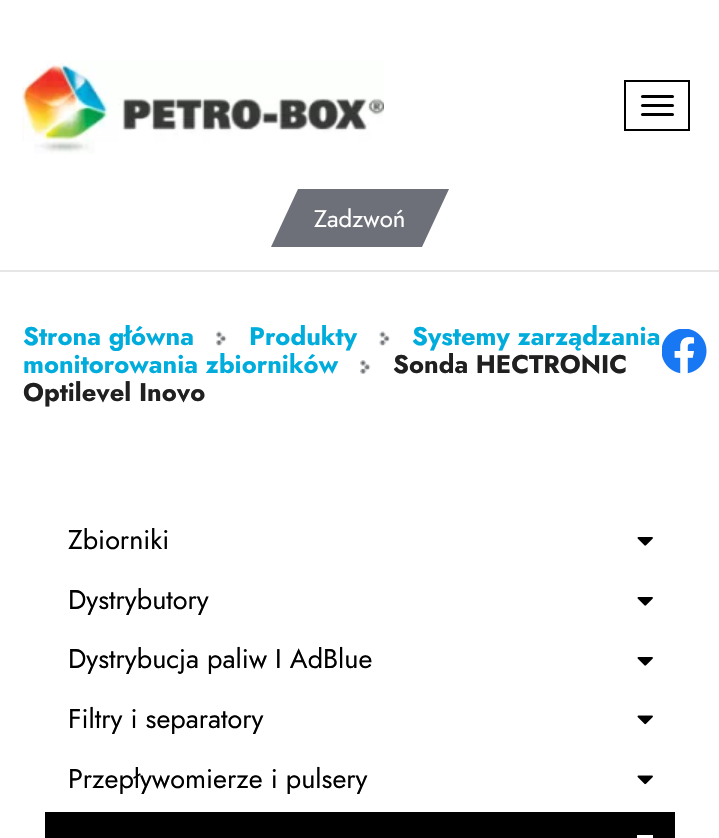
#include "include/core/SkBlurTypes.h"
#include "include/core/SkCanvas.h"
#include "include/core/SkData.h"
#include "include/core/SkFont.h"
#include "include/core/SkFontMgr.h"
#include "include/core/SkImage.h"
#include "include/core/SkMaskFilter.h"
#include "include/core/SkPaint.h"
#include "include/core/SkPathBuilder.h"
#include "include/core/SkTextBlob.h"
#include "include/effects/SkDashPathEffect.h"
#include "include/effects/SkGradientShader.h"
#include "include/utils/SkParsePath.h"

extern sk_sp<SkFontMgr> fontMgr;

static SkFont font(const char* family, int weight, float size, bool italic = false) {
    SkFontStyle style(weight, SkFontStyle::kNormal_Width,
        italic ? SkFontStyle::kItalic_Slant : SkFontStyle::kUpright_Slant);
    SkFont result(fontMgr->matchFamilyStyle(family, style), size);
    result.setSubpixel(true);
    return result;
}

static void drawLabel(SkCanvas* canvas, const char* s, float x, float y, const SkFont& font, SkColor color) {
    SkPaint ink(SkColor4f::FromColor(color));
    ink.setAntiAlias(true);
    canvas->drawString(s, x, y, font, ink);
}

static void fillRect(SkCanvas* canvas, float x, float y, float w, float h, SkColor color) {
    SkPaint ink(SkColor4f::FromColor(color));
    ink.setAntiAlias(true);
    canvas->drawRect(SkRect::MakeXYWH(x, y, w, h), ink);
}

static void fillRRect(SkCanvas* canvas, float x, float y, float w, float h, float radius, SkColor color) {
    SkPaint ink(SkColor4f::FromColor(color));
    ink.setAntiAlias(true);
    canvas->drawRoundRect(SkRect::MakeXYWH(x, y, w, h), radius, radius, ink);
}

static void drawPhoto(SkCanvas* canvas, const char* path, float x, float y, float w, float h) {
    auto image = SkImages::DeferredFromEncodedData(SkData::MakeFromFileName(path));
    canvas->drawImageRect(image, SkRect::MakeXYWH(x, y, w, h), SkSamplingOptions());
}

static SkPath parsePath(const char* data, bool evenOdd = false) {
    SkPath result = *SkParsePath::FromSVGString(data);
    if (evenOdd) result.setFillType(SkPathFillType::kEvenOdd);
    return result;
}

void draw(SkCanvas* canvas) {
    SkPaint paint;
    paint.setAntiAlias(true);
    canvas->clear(0xFFFFFFFF);
    fillRect(canvas, 0, 270, 719, 2, 0xFFE6E6E6);
    drawPhoto(canvas, "assets/img1.png", 22, 60, 362, 94);
    paint.setStroke(true);
    paint.setStrokeWidth(2);
    paint.setColor(0xFF000000);
    canvas->drawRect(SkRect::MakeXYWH(625, 81, 64, 49), paint);
    fillRRect(canvas, 641, 95, 33, 3, 1.5f, 0xFF000000);
    fillRRect(canvas, 641, 104, 33, 3, 1.5f, 0xFF000000);
    fillRRect(canvas, 641, 113, 33, 3, 1.5f, 0xFF000000);
    paint.setStroke(false);
    paint.setColor(0xFF6D7078);
    canvas->drawPath(parsePath("M298 189H449L422 247H271Z"), paint);
    SkFont font1 = font("Jost", 400, 24);
    drawLabel(canvas, "Zadzwoń", 314, 227, font1, 0xFFFFFFFF);
    SkFont font2 = font("Jost", 700, 25.5f);
    drawLabel(canvas, "Strona główna", 23, 345, font2, 0xFF00ACDB);
    drawPhoto(canvas, "assets/img2.png", 216, 331, 11, 15);
    drawLabel(canvas, "Produkty", 249, 345, font2, 0xFF00ACDB);
    drawPhoto(canvas, "assets/img3.png", 379, 331, 11, 15);
    drawLabel(canvas, "Systemy zarządzania", 412, 345, font2, 0xFF00ACDB);
    drawLabel(canvas, "monitorowania zbiorników", 23, 373, font2, 0xFF00ACDB);
    drawPhoto(canvas, "assets/img4.png", 360, 360, 11, 14);
    drawLabel(canvas, "Sonda HECTRONIC", 393, 373, font2, 0xFF202020);
    drawLabel(canvas, "Optilevel Inovo", 23, 401, font2, 0xFF202020);
    SkFont font3 = font("Jost", 400, 27);
    drawLabel(canvas, "Zbiorniki", 68, 549, font3, 0xFF000000);
    drawPhoto(canvas, "assets/img5.png", 637, 537, 16, 9);
    drawLabel(canvas, "Dystrybutory", 68, 609, font3, 0xFF000000);
    drawPhoto(canvas, "assets/img5.png", 637, 597, 16, 9);
    drawLabel(canvas, "Dystrybucja paliw I AdBlue", 68, 668, font3, 0xFF000000);
    drawPhoto(canvas, "assets/img5.png", 637, 657, 16, 9);
    drawLabel(canvas, "Filtry i separatory", 68, 728, font3, 0xFF000000);
    drawPhoto(canvas, "assets/img6.png", 637, 715, 16, 10);
    drawLabel(canvas, "Przepływomierze i pulsery", 68, 788, font3, 0xFF000000);
    drawPhoto(canvas, "assets/img6.png", 637, 775, 16, 10);
    fillRect(canvas, 45, 812, 630, 26, 0xFF000000);
    fillRect(canvas, 637, 835, 16, 3, 0xFFFFFFFF);
    drawPhoto(canvas, "assets/img7.png", 662, 329, 45, 45);
}
